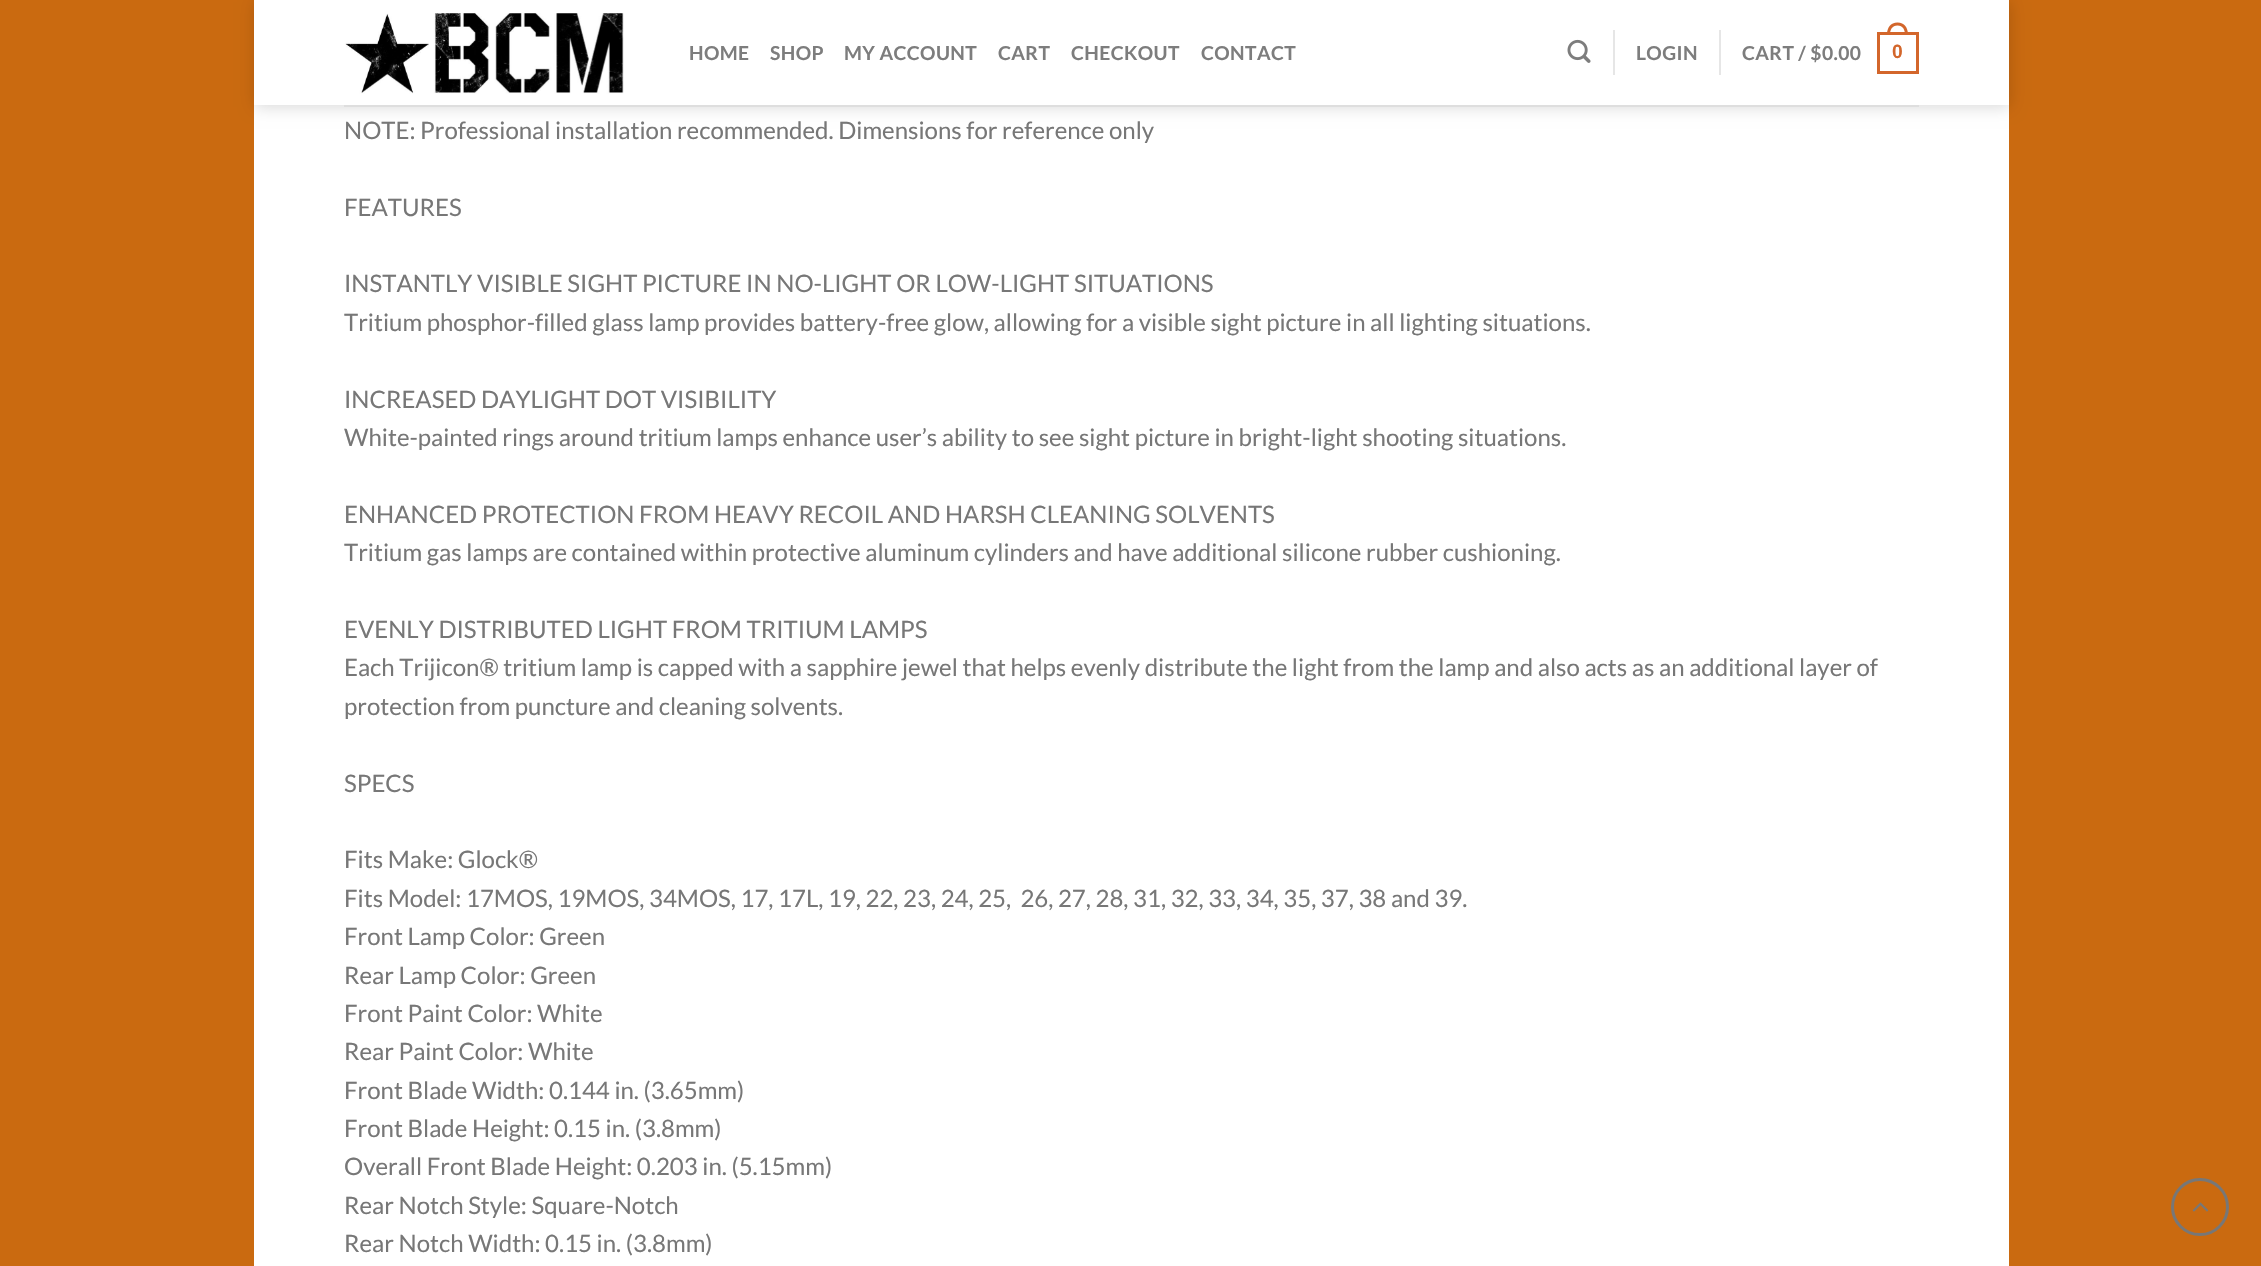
#include "include/core/SkBlurTypes.h"
#include "include/core/SkCanvas.h"
#include "include/core/SkData.h"
#include "include/core/SkFont.h"
#include "include/core/SkFontMgr.h"
#include "include/core/SkImage.h"
#include "include/core/SkMaskFilter.h"
#include "include/core/SkPaint.h"
#include "include/core/SkPathBuilder.h"
#include "include/core/SkTextBlob.h"
#include "include/effects/SkDashPathEffect.h"
#include "include/effects/SkGradientShader.h"
#include "include/utils/SkParsePath.h"

extern sk_sp<SkFontMgr> fontMgr;

static SkFont font(const char* family, int weight, float size, bool italic = false) {
    SkFontStyle style(weight, SkFontStyle::kNormal_Width,
        italic ? SkFontStyle::kItalic_Slant : SkFontStyle::kUpright_Slant);
    SkFont result(fontMgr->matchFamilyStyle(family, style), size);
    result.setSubpixel(true);
    return result;
}

static void drawLabel(SkCanvas* canvas, const char* s, float x, float y, const SkFont& font, SkColor color) {
    SkPaint ink(SkColor4f::FromColor(color));
    ink.setAntiAlias(true);
    canvas->drawString(s, x, y, font, ink);
}

static void drawTracked(SkCanvas* canvas, const char* s, float x, float y, const SkFont& font, const SkPaint& ink, float letter, float word) {
    std::vector<SkGlyphID> glyphs(font.countText(s, strlen(s), SkTextEncoding::kUTF8));
    std::vector<float> xs(glyphs.size());
    font.textToGlyphs(s, strlen(s), SkTextEncoding::kUTF8, glyphs);
    font.getXPos(glyphs, xs, x);
    float extra = 0;
    for (size_t i = 0; i < glyphs.size(); i++) {
        xs[i] += extra;
        extra += letter + word * (glyphs[i] == font.unicharToGlyph(' '));
    }
    canvas->drawTextBlob(SkTextBlob::MakeFromPosHGlyphs(glyphs, xs, y, font), 0, 0, ink);
}

static void fillRect(SkCanvas* canvas, float x, float y, float w, float h, SkColor color) {
    SkPaint ink(SkColor4f::FromColor(color));
    ink.setAntiAlias(true);
    canvas->drawRect(SkRect::MakeXYWH(x, y, w, h), ink);
}

static void drawPhoto(SkCanvas* canvas, const char* path, float x, float y, float w, float h) {
    auto image = SkImages::DeferredFromEncodedData(SkData::MakeFromFileName(path));
    canvas->drawImageRect(image, SkRect::MakeXYWH(x, y, w, h), SkSamplingOptions());
}

static SkPath parsePath(const char* data, bool evenOdd = false) {
    SkPath result = *SkParsePath::FromSVGString(data);
    if (evenOdd) result.setFillType(SkPathFillType::kEvenOdd);
    return result;
}

void draw(SkCanvas* canvas) {
    SkPaint paint;
    paint.setAntiAlias(true);
    canvas->clear(0xFFCA6A10);
    fillRect(canvas, 254, 0, 1755, 1266, 0xFFFFFFFF);
    canvas->save();
    canvas->clipPath(parsePath("M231 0H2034V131H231ZM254 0H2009V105H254Z", true), true);
    paint.setColor(0x26000000);
    paint.setMaskFilter(SkMaskFilter::MakeBlur(kNormal_SkBlurStyle, 7.5f));
    canvas->drawRect(SkRect::MakeXYWH(255, 2, 1755, 105), paint);
    paint.setMaskFilter(nullptr);
    canvas->restore();
    drawPhoto(canvas, "assets/img1.png", 345, 6, 282, 88);
    SkFont font1 = font("Lato", 700, 19.25f);
    paint.setColor(0xFF7D7D7D);
    drawTracked(canvas, "HOME", 689, 60, font1, paint, 0.4f, 0);
    drawTracked(canvas, "SHOP", 770, 60, font1, paint, 0.4f, 0);
    drawTracked(canvas, "MY ACCOUNT", 844, 60, font1, paint, 0.4f, 0);
    drawTracked(canvas, "CART", 998, 60, font1, paint, 0.4f, 0);
    drawTracked(canvas, "CHECKOUT", 1071, 60, font1, paint, 0.4f, 0);
    drawTracked(canvas, "CONTACT", 1201, 60, font1, paint, 0.4f, 0);
    drawPhoto(canvas, "assets/img2.png", 1567, 39, 24, 24);
    fillRect(canvas, 1613, 30, 2, 45, 0xFFE6E6E6);
    drawTracked(canvas, "LOGIN", 1636, 60, font1, paint, 0.4f, 0);
    fillRect(canvas, 1719, 30, 2, 45, 0xFFE6E6E6);
    drawTracked(canvas, "CART / $0.00", 1742, 60, font1, paint, 0.4f, 0);
    paint.setStroke(true);
    paint.setStrokeWidth(3);
    paint.setColor(0xFFD3662B);
    canvas->drawRect(SkRect::MakeXYWH(1878.5f, 33.5f, 39, 39), paint);
    paint.setStroke(false);
    canvas->drawPath(parsePath("M1897.5 22.5C1904.5 22.5 1908 28 1908 34.5H1887C1887 28 1890.5 22.5 1897.5 22.5ZM1897.5 25.5C1903 25.5 1905 30 1905 34.5H1890C1890 30 1892 25.5 1897.5 25.5Z", true), paint);
    SkFont font2 = font("Liberation Sans", 700, 19.25f);
    drawTracked(canvas, "0", 1892, 58, font2, paint, 0.4f, 0);
    fillRect(canvas, 344, 105, 1575, 2, 0xFFDEDEDE);
    fillRect(canvas, 2008, 0, 1, 105, 0xE6FFFFFF);
    SkFont font3 = font("Lato", 400, 24);
    drawLabel(canvas, "NOTE: Professional installation recommended. Dimensions for reference only", 344, 139, font3, 0xFF777777);
    drawLabel(canvas, "FEATURES", 344, 216, font3, 0xFF777777);
    drawLabel(canvas, "INSTANTLY VISIBLE SIGHT PICTURE IN NO-LIGHT OR LOW-LIGHT SITUATIONS", 344, 292, font3, 0xFF777777);
    drawLabel(canvas, "Tritium phosphor-filled glass lamp provides battery-free glow, allowing for a visible sight picture in all lighting situations.", 344, 331, font3, 0xFF777777);
    drawLabel(canvas, "INCREASED DAYLIGHT DOT VISIBILITY", 344, 408, font3, 0xFF777777);
    drawLabel(canvas, "White-painted rings around tritium lamps enhance user’s ability to see sight picture in bright-light shooting situations.", 344, 446, font3, 0xFF777777);
    drawLabel(canvas, "ENHANCED PROTECTION FROM HEAVY RECOIL AND HARSH CLEANING SOLVENTS", 344, 523, font3, 0xFF777777);
    drawLabel(canvas, "Tritium gas lamps are contained within protective aluminum cylinders and have additional silicone rubber cushioning.", 344, 561, font3, 0xFF777777);
    drawLabel(canvas, "EVENLY DISTRIBUTED LIGHT FROM TRITIUM LAMPS", 344, 638, font3, 0xFF777777);
    drawLabel(canvas, "Each Trijicon® tritium lamp is capped with a sapphire jewel that helps evenly distribute the light from the lamp and also acts as an additional layer of", 344, 676, font3, 0xFF777777);
    drawLabel(canvas, "protection from puncture and cleaning solvents.", 344, 715, font3, 0xFF777777);
    drawLabel(canvas, "SPECS", 344, 792, font3, 0xFF777777);
    drawLabel(canvas, "Fits Make: Glock®", 344, 868, font3, 0xFF777777);
    drawLabel(canvas, "Fits Model: 17MOS, 19MOS, 34MOS, 17, 17L, 19, 22, 23, 24, 25,  26, 27, 28, 31, 32, 33, 34, 35, 37, 38 and 39.", 344, 907, font3, 0xFF777777);
    drawLabel(canvas, "Front Lamp Color: Green", 344, 945, font3, 0xFF777777);
    drawLabel(canvas, "Rear Lamp Color: Green", 344, 984, font3, 0xFF777777);
    drawLabel(canvas, "Front Paint Color: White", 344, 1022, font3, 0xFF777777);
    drawLabel(canvas, "Rear Paint Color: White", 344, 1060, font3, 0xFF777777);
    drawLabel(canvas, "Front Blade Width: 0.144 in. (3.65mm)", 344, 1099, font3, 0xFF777777);
    drawLabel(canvas, "Front Blade Height: 0.15 in. (3.8mm)", 344, 1137, font3, 0xFF777777);
    drawLabel(canvas, "Overall Front Blade Height: 0.203 in. (5.15mm)", 344, 1175, font3, 0xFF777777);
    drawLabel(canvas, "Rear Notch Style: Square-Notch", 344, 1214, font3, 0xFF777777);
    drawLabel(canvas, "Rear Notch Width: 0.15 in. (3.8mm)", 344, 1252, font3, 0xFF777777);
    paint.setStroke(true);
    paint.setColor(0xFF777777);
    canvas->drawCircle(2200, 1207, 27.5f, paint);
    drawPhoto(canvas, "assets/img3.png", 2192, 1202, 17, 10);
}
